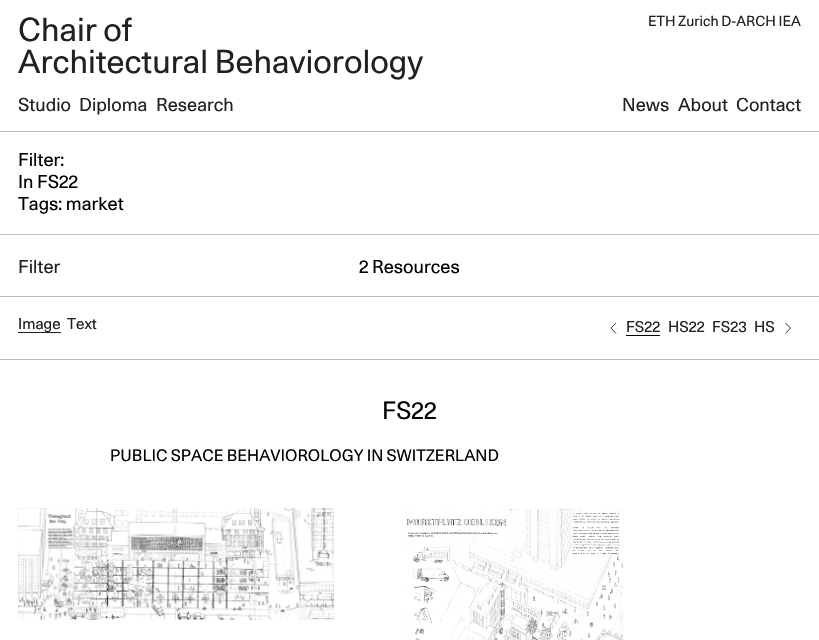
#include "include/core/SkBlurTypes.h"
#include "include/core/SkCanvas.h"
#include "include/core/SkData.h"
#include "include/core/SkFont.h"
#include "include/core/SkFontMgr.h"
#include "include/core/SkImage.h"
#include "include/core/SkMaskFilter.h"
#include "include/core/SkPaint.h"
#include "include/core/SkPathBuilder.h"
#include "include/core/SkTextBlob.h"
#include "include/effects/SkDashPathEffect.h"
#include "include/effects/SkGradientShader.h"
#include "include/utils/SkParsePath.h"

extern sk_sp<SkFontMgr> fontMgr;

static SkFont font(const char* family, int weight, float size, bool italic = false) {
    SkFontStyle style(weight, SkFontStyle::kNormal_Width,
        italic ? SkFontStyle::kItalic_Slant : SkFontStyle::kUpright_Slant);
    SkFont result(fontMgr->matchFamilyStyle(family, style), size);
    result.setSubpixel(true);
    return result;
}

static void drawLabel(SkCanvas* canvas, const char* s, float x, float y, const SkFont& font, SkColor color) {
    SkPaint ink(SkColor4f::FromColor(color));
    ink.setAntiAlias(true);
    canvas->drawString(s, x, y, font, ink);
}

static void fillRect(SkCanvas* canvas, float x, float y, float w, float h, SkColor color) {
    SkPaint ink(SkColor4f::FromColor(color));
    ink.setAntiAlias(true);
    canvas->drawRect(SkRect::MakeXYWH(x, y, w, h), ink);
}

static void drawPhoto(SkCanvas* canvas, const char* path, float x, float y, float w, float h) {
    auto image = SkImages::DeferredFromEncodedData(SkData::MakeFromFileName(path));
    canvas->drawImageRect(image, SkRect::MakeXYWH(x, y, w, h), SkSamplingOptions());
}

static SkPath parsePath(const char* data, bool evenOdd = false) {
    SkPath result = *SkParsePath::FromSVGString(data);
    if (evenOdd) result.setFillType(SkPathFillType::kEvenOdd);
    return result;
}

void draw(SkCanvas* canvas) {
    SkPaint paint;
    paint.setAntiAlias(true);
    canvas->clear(0xFFFFFFFF);
    SkFont font1 = font("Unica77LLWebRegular", 400, 32);
    drawLabel(canvas, "Chair of", 18, 41, font1, 0xFF212121);
    drawLabel(canvas, "Architectural Behaviorology", 18, 73, font1, 0xFF212121);
    SkFont font2 = font("Unica77LLWebRegular", 400, 14);
    drawLabel(canvas, "ETH Zurich D-ARCH IEA", 648, 26, font2, 0xFF212121);
    fillRect(canvas, 0, 131, 819, 1, 0xFFBDBDBD);
    SkFont font3 = font("Unica77LLWebRegular", 400, 18);
    drawLabel(canvas, "Studio", 18, 111, font3, 0xFF212121);
    drawLabel(canvas, "Diploma", 79, 111, font3, 0xFF212121);
    drawLabel(canvas, "Research", 156, 111, font3, 0xFF212121);
    drawLabel(canvas, "News", 622, 111, font3, 0xFF212121);
    drawLabel(canvas, "About", 678, 111, font3, 0xFF212121);
    drawLabel(canvas, "Contact", 736, 111, font3, 0xFF212121);
    fillRect(canvas, 0, 234, 819, 1, 0xFFBDBDBD);
    drawLabel(canvas, "Filter:", 18, 166, font3, 0xFF000000);
    drawLabel(canvas, "In FS22", 18, 188, font3, 0xFF000000);
    drawLabel(canvas, "Tags: market", 18, 210, font3, 0xFF000000);
    fillRect(canvas, 0, 296, 819, 1, 0xFFBDBDBD);
    drawLabel(canvas, "Filter", 18, 273, font3, 0xFF212121);
    drawLabel(canvas, "2 Resources", 359, 273, font3, 0xFF000000);
    fillRect(canvas, 0, 359, 819, 1, 0xFFBDBDBD);
    fillRect(canvas, 18, 332, 43, 1, 0xFF212121);
    SkFont font4 = font("Unica77LLWebRegular", 400, 15);
    drawLabel(canvas, "Image", 18, 329, font4, 0xFF212121);
    drawLabel(canvas, "Text", 67, 329, font4, 0xFF212121);
    paint.setStroke(true);
    paint.setStrokeWidth(0.9f);
    paint.setColor(0xFF212121);
    canvas->drawPath(parsePath("M616 323L611 328L616 333.5"), paint);
    drawLabel(canvas, "FS22", 626, 332, font4, 0xFF212121);
    fillRect(canvas, 626, 335, 34, 1, 0xFF000000);
    drawLabel(canvas, "HS22", 668, 332, font4, 0xFF212121);
    drawLabel(canvas, "FS23", 712, 332, font4, 0xFF212121);
    drawLabel(canvas, "HS", 754, 332, font4, 0xFF212121);
    canvas->drawPath(parsePath("M785.5 333.5L790.5 328L785.5 323"), paint);
    SkFont font5 = font("Unica77LLWebRegular", 400, 24);
    drawLabel(canvas, "FS22", 382, 419, font5, 0xFF000000);
    SkFont font6 = font("Unica77LLWebRegular", 400, 16);
    drawLabel(canvas, "PUBLIC SPACE BEHAVIOROLOGY IN SWITZERLAND", 110, 461, font6, 0xFF000000);
    drawPhoto(canvas, "assets/img1.png", 18, 508, 316, 112);
    drawPhoto(canvas, "assets/img2.png", 401, 508, 222, 132);
}
